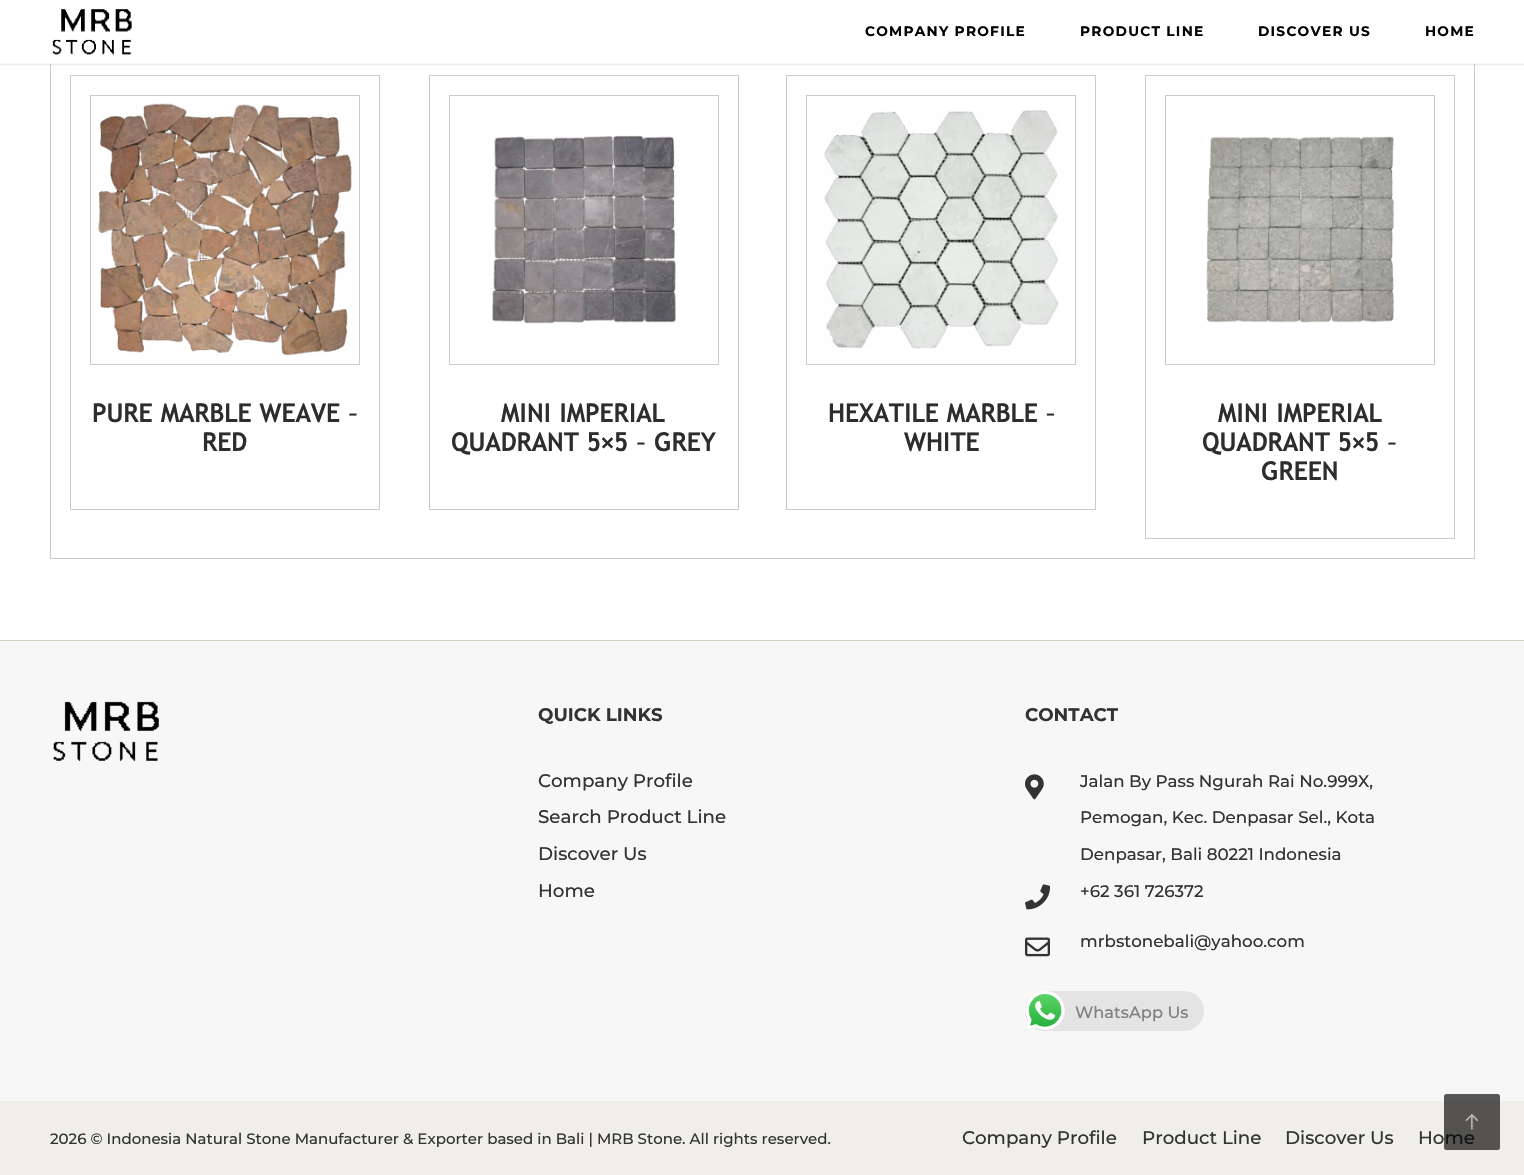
#include "include/core/SkBlurTypes.h"
#include "include/core/SkCanvas.h"
#include "include/core/SkData.h"
#include "include/core/SkFont.h"
#include "include/core/SkFontMgr.h"
#include "include/core/SkImage.h"
#include "include/core/SkMaskFilter.h"
#include "include/core/SkPaint.h"
#include "include/core/SkPathBuilder.h"
#include "include/core/SkTextBlob.h"
#include "include/effects/SkDashPathEffect.h"
#include "include/effects/SkGradientShader.h"
#include "include/utils/SkParsePath.h"

extern sk_sp<SkFontMgr> fontMgr;

static SkFont font(const char* family, int weight, float size, bool italic = false) {
    SkFontStyle style(weight, SkFontStyle::kNormal_Width,
        italic ? SkFontStyle::kItalic_Slant : SkFontStyle::kUpright_Slant);
    SkFont result(fontMgr->matchFamilyStyle(family, style), size);
    result.setSubpixel(true);
    return result;
}

static void drawLabel(SkCanvas* canvas, const char* s, float x, float y, const SkFont& font, SkColor color) {
    SkPaint ink(SkColor4f::FromColor(color));
    ink.setAntiAlias(true);
    canvas->drawString(s, x, y, font, ink);
}

static void drawTracked(SkCanvas* canvas, const char* s, float x, float y, const SkFont& font, const SkPaint& ink, float letter, float word) {
    std::vector<SkGlyphID> glyphs(font.countText(s, strlen(s), SkTextEncoding::kUTF8));
    std::vector<float> xs(glyphs.size());
    font.textToGlyphs(s, strlen(s), SkTextEncoding::kUTF8, glyphs);
    font.getXPos(glyphs, xs, x);
    float extra = 0;
    for (size_t i = 0; i < glyphs.size(); i++) {
        xs[i] += extra;
        extra += letter + word * (glyphs[i] == font.unicharToGlyph(' '));
    }
    canvas->drawTextBlob(SkTextBlob::MakeFromPosHGlyphs(glyphs, xs, y, font), 0, 0, ink);
}

static void fillRect(SkCanvas* canvas, float x, float y, float w, float h, SkColor color) {
    SkPaint ink(SkColor4f::FromColor(color));
    ink.setAntiAlias(true);
    canvas->drawRect(SkRect::MakeXYWH(x, y, w, h), ink);
}

static void fillRRect(SkCanvas* canvas, float x, float y, float w, float h, float radius, SkColor color) {
    SkPaint ink(SkColor4f::FromColor(color));
    ink.setAntiAlias(true);
    canvas->drawRoundRect(SkRect::MakeXYWH(x, y, w, h), radius, radius, ink);
}

static void drawPhoto(SkCanvas* canvas, const char* path, float x, float y, float w, float h) {
    auto image = SkImages::DeferredFromEncodedData(SkData::MakeFromFileName(path));
    canvas->drawImageRect(image, SkRect::MakeXYWH(x, y, w, h), SkSamplingOptions());
}

void draw(SkCanvas* canvas) {
    SkPaint paint;
    paint.setAntiAlias(true);
    canvas->clear(0xFFFFFFFF);
    paint.setStroke(true);
    paint.setStrokeWidth(1);
    paint.setColor(0xFFCBCBCB);
    canvas->drawRect(SkRect::MakeXYWH(50.5f, -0.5f, 1424, 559), paint);
    paint.setStroke(false);
    paint.setColor(0x12000000);
    paint.setMaskFilter(SkMaskFilter::MakeBlur(kNormal_SkBlurStyle, 0.5f));
    canvas->drawRect(SkRect::MakeXYWH(0, 1, 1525, 64), paint);
    paint.setMaskFilter(nullptr);
    fillRect(canvas, 0, 0, 1524, 63, 0xFFFFFFFF);
    fillRect(canvas, 0, 63, 1524, 1, 0xFFF7F7F7);
    drawPhoto(canvas, "assets/img1.png", 52, 9, 80, 46);
    SkFont font1 = font("Montserrat", 700, 13.75f);
    paint.setColor(0xFF000000);
    drawTracked(canvas, "COMPANY PROFILE", 865, 36, font1, paint, 1.25f, 0);
    drawTracked(canvas, "PRODUCT LINE", 1080, 36, font1, paint, 1.25f, 0);
    drawTracked(canvas, "DISCOVER US", 1258, 36, font1, paint, 1.25f, 0);
    drawTracked(canvas, "HOME", 1425, 36, font1, paint, 1.25f, 0);
    paint.setStroke(true);
    paint.setColor(0xFFCBCBCB);
    canvas->drawRect(SkRect::MakeXYWH(70.5f, 75.5f, 309, 434), paint);
    canvas->drawRect(SkRect::MakeXYWH(90.5f, 95.5f, 269, 269), paint);
    drawPhoto(canvas, "assets/img2.png", 98, 103, 254, 253);
    SkFont font2 = font("Trebuchet MS", 700, 25);
    paint.setStroke(false);
    paint.setColor(0xFF2D2D2D);
    drawTracked(canvas, "PURE MARBLE WEAVE –", 92, 422, font2, paint, 0.6f, 0);
    drawTracked(canvas, "RED", 202, 451, font2, paint, 0.6f, 0);
    paint.setStroke(true);
    paint.setColor(0xFFCBCBCB);
    canvas->drawRect(SkRect::MakeXYWH(429.5f, 75.5f, 309, 434), paint);
    canvas->drawRect(SkRect::MakeXYWH(449.5f, 95.5f, 269, 269), paint);
    drawPhoto(canvas, "assets/img3.png", 492, 135, 184, 189);
    paint.setStroke(false);
    paint.setColor(0xFF2D2D2D);
    drawTracked(canvas, "MINI IMPERIAL", 501, 422, font2, paint, 0.6f, 0);
    drawTracked(canvas, "QUADRANT 5×5 – GREY", 451, 451, font2, paint, 0.6f, 0);
    paint.setStroke(true);
    paint.setColor(0xFFCBCBCB);
    canvas->drawRect(SkRect::MakeXYWH(786.5f, 75.5f, 309, 434), paint);
    canvas->drawRect(SkRect::MakeXYWH(806.5f, 95.5f, 269, 269), paint);
    drawPhoto(canvas, "assets/img4.png", 824, 110, 235, 239);
    paint.setStroke(false);
    paint.setColor(0xFF2D2D2D);
    drawTracked(canvas, "HEXATILE MARBLE –", 828, 422, font2, paint, 0.6f, 0);
    drawTracked(canvas, "WHITE", 904, 451, font2, paint, 0.6f, 0);
    paint.setStroke(true);
    paint.setColor(0xFFCBCBCB);
    canvas->drawRect(SkRect::MakeXYWH(1145.5f, 75.5f, 309, 463), paint);
    canvas->drawRect(SkRect::MakeXYWH(1165.5f, 95.5f, 269, 269), paint);
    drawPhoto(canvas, "assets/img5.png", 1206, 136, 188, 187);
    paint.setStroke(false);
    paint.setColor(0xFF2D2D2D);
    drawTracked(canvas, "MINI IMPERIAL", 1218, 422, font2, paint, 0.6f, 0);
    drawTracked(canvas, "QUADRANT 5×5 –", 1202, 451, font2, paint, 0.6f, 0);
    drawTracked(canvas, "GREEN", 1261, 480, font2, paint, 0.6f, 0);
    fillRect(canvas, 0, 641, 1524, 460, 0xFFF7F7F7);
    fillRect(canvas, 0, 640, 1524, 1, 0xFFD7D1BB);
    drawPhoto(canvas, "assets/img6.png", 53, 701, 106, 60);
    SkFont font3 = font("Montserrat", 700, 18.25f);
    drawLabel(canvas, "QUICK LINKS", 538, 721, font3, 0xFF333333);
    SkFont font4 = font("Montserrat", 500, 18.25f);
    drawLabel(canvas, "Company Profile", 538, 787, font4, 0xFF333333);
    drawLabel(canvas, "Search Product Line", 538, 823, font4, 0xFF333333);
    drawLabel(canvas, "Discover Us", 538, 860, font4, 0xFF333333);
    drawLabel(canvas, "Home", 538, 897, font4, 0xFF333333);
    drawLabel(canvas, "CONTACT", 1025, 721, font3, 0xFF333333);
    drawPhoto(canvas, "assets/img7.png", 1025, 774, 19, 26);
    SkFont font5 = font("Montserrat", 500, 16.7f);
    drawLabel(canvas, "Jalan By Pass Ngurah Rai No.999X,", 1080, 787, font5, 0xFF333333);
    drawLabel(canvas, "Pemogan, Kec. Denpasar Sel., Kota", 1080, 823, font5, 0xFF333333);
    drawLabel(canvas, "Denpasar, Bali 80221 Indonesia", 1080, 860, font5, 0xFF333333);
    drawPhoto(canvas, "assets/img8.png", 1025, 884, 25, 26);
    drawLabel(canvas, "+62 361 726372", 1080, 897, font5, 0xFF333333);
    drawPhoto(canvas, "assets/img9.png", 1025, 937, 25, 20);
    drawLabel(canvas, "mrbstonebali@yahoo.com", 1080, 947, font5, 0xFF333333);
    fillRRect(canvas, 1025, 991, 179, 40, 20, 0xFFE4E4E4);
    drawPhoto(canvas, "assets/img10.png", 1025, 991, 40, 40);
    SkFont font6 = font("Montserrat", 500, 16.25f);
    drawLabel(canvas, "WhatsApp Us", 1075, 1018, font6, 0xFF7F7D7D);
    fillRect(canvas, 0, 1101, 1524, 74, 0xFFEFEEE8);
    SkFont font7 = font("Montserrat", 500, 15);
    drawLabel(canvas, "2026 © Indonesia Natural Stone Manufacturer & Exporter based in Bali | MRB Stone. All rights reserved.", 50, 1144, font7, 0xFF333333);
    drawLabel(canvas, "Company Profile", 962, 1144, font4, 0xFF333333);
    drawLabel(canvas, "Product Line", 1142, 1144, font4, 0xFF333333);
    drawLabel(canvas, "Discover Us", 1285, 1144, font4, 0xFF333333);
    drawLabel(canvas, "Home", 1418, 1144, font4, 0xFF333333);
    fillRRect(canvas, 1444, 1094, 56, 56, 2.5f, 0xA6000000);
    drawPhoto(canvas, "assets/img11.png", 1465, 1114, 13, 16);
}
